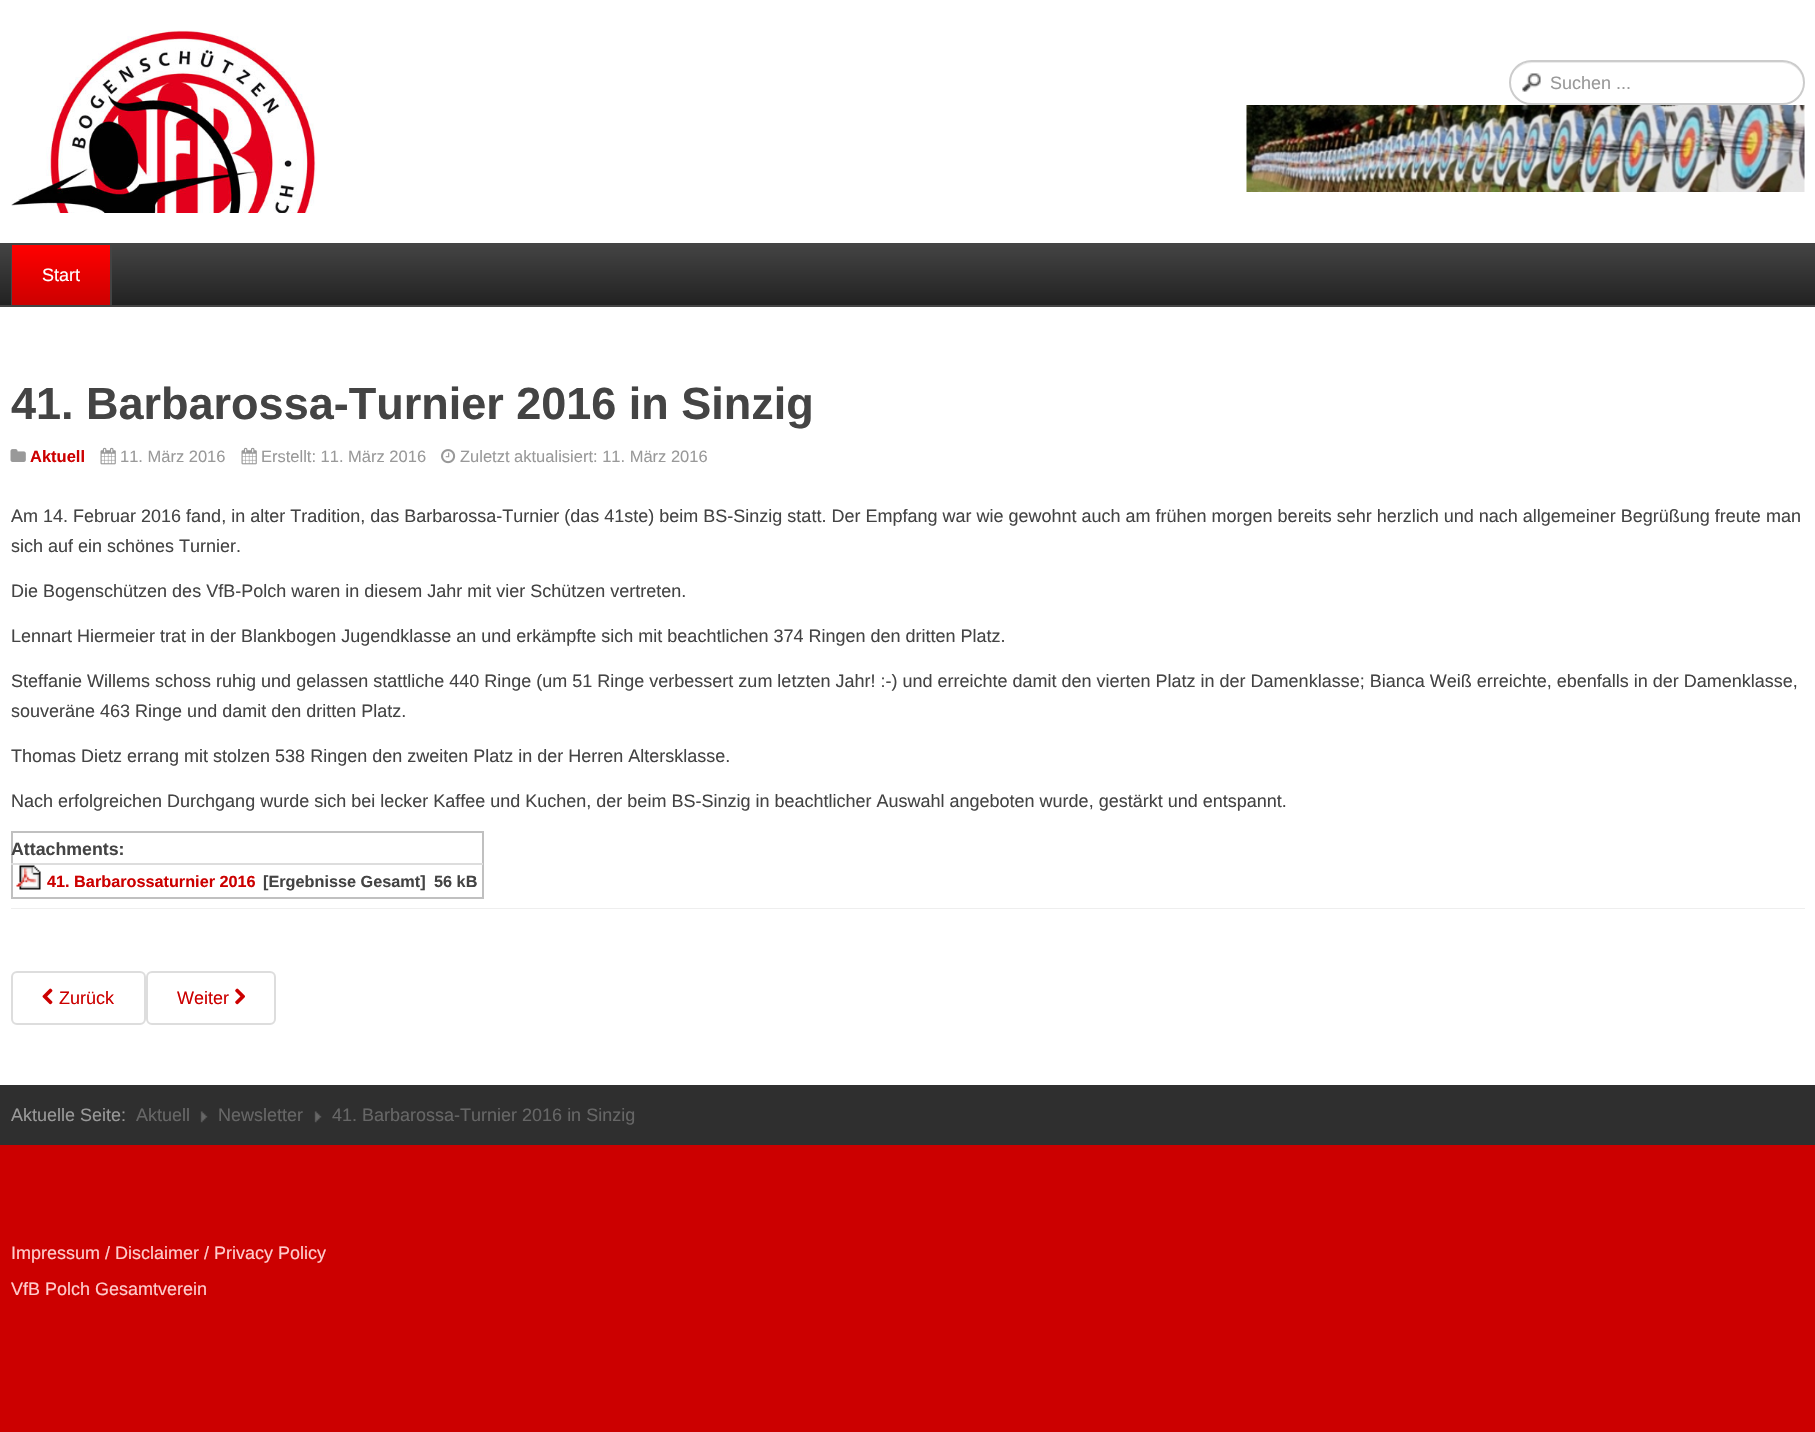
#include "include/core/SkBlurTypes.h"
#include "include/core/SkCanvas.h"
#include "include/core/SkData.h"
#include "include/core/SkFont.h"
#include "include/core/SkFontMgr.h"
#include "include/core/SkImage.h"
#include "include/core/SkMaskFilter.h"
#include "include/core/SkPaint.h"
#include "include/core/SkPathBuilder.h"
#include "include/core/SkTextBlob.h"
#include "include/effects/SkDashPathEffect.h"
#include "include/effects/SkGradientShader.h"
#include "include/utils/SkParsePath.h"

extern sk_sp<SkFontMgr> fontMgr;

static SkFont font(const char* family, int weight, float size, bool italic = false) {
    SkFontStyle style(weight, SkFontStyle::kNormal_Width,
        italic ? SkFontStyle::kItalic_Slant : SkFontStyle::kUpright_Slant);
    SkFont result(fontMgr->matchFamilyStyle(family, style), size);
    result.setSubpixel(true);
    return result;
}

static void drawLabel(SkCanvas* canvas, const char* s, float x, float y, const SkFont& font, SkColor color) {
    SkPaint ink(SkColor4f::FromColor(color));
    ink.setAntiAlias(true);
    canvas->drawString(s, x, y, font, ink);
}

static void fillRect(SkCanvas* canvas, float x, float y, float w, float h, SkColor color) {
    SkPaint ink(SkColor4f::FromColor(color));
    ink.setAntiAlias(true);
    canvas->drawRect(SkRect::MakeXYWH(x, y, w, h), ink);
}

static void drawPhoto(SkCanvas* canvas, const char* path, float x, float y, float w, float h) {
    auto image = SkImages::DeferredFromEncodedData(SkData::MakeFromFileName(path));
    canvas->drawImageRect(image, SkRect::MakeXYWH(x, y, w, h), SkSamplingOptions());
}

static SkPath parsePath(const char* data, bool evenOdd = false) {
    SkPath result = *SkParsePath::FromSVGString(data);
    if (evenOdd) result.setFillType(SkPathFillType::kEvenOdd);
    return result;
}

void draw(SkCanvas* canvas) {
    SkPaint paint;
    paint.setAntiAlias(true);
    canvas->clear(0xFFFFFFFF);
    drawPhoto(canvas, "assets/img1.png", 11, 30, 306, 183);
    drawPhoto(canvas, "assets/img2.png", 1522, 73, 19, 19);
    paint.setColor(0xFFECECEC);
    canvas->drawPath(parsePath("M1532 63H1782C1794 63 1803 72 1803 83C1803 71 1794 62 1782 62H1532C1525 62 1519 65 1516 70C1520 66 1525 63 1532 63Z"), paint);
    paint.setStroke(true);
    paint.setStrokeWidth(2);
    paint.setColor(0xFFCCCCCC);
    canvas->drawRoundRect(SkRect::MakeXYWH(1510, 61, 294, 43), 21.5f, 21.5f, paint);
    SkFont font1 = font("Liberation Sans", 400, 18);
    drawLabel(canvas, "Suchen ...", 1550, 89, font1, 0xFF999999);
    drawPhoto(canvas, "assets/img3.png", 1246, 105, 559, 87);
    paint.setStroke(false);
    {
        const SkColor colors[] = {0xFF444444, 0xFF222222};
        const float stops[] = {0, 1};
        const SkPoint ends[] = {{908, 244}, {908, 305}};
        paint.setShader(SkGradientShader::MakeLinear(ends, colors, stops, 2, SkTileMode::kClamp));
        paint.setAlpha(255);
    }
    canvas->drawRect(SkRect::MakeXYWH(0, 245, 1815, 60), paint);
    fillRect(canvas, 0, 243, 1815, 2, 0xFF444444);
    fillRect(canvas, 0, 305, 1815, 2, 0xFF444444);
    fillRect(canvas, 11, 245, 1, 60, 0xFF444444);
    {
        const SkColor colors[] = {0xFFFF0000, 0xFFCC0000};
        const float stops[] = {0, 1};
        const SkPoint ends[] = {{61, 245}, {61, 305}};
        paint.setShader(SkGradientShader::MakeLinear(ends, colors, stops, 2, SkTileMode::kClamp));
        paint.setAlpha(255);
    }
    canvas->drawRect(SkRect::MakeXYWH(12, 245, 98, 60), paint);
    fillRect(canvas, 110, 245, 2, 60, 0xFF444444);
    drawLabel(canvas, "Start", 42, 281, font1, 0xFFFFFFFF);
    SkFont font2 = font("Liberation Sans", 700, 45);
    drawLabel(canvas, "41. Barbarossa-Turnier 2016 in Sinzig", 11, 419, font2, 0xFF444444);
    drawPhoto(canvas, "assets/img4.png", 10, 449, 16, 13);
    SkFont font3 = font("Liberation Sans", 700, 16.5f);
    drawLabel(canvas, "Aktuell", 30, 462, font3, 0xFFCC0000);
    drawPhoto(canvas, "assets/img5.png", 100, 447, 16, 18);
    SkFont font4 = font("Liberation Sans", 400, 16.5f);
    drawLabel(canvas, "11. März 2016", 120, 462, font4, 0xFF999999);
    drawPhoto(canvas, "assets/img5.png", 241, 447, 16, 18);
    drawLabel(canvas, "Erstellt: 11. März 2016", 261, 462, font4, 0xFF999999);
    drawPhoto(canvas, "assets/img6.png", 441, 449, 15, 15);
    drawLabel(canvas, "Zuletzt aktualisiert: 11. März 2016", 460, 462, font4, 0xFF999999);
    drawLabel(canvas, "Am 14. Februar 2016 fand, in alter Tradition, das Barbarossa-Turnier (das 41ste) beim BS-Sinzig statt. Der Empfang war wie gewohnt auch am frühen morgen bereits sehr herzlich und nach allgemeiner Begrüßung freute man", 11, 522, font1, 0xFF444444);
    drawLabel(canvas, "sich auf ein schönes Turnier.", 11, 552, font1, 0xFF444444);
    drawLabel(canvas, "Die Bogenschützen des VfB-Polch waren in diesem Jahr mit vier Schützen vertreten.", 11, 597, font1, 0xFF444444);
    drawLabel(canvas, "Lennart Hiermeier trat in der Blankbogen Jugendklasse an und erkämpfte sich mit beachtlichen 374 Ringen den dritten Platz.", 11, 642, font1, 0xFF444444);
    drawLabel(canvas, "Steffanie Willems schoss ruhig und gelassen stattliche 440 Ringe (um 51 Ringe verbessert zum letzten Jahr! :-) und erreichte damit den vierten Platz in der Damenklasse; Bianca Weiß erreichte, ebenfalls in der Damenklasse,", 11, 687, font1, 0xFF444444);
    drawLabel(canvas, "souveräne 463 Ringe und damit den dritten Platz.", 11, 717, font1, 0xFF444444);
    drawLabel(canvas, "Thomas Dietz errang mit stolzen 538 Ringen den zweiten Platz in der Herren Altersklasse.", 11, 762, font1, 0xFF444444);
    drawLabel(canvas, "Nach erfolgreichen Durchgang wurde sich bei lecker Kaffee und Kuchen, der beim BS-Sinzig in beachtlicher Auswahl angeboten wurde, gestärkt und entspannt.", 11, 807, font1, 0xFF444444);
    fillRect(canvas, 11, 831, 472, 2, 0xFFC0C0C0);
    fillRect(canvas, 482, 831, 2, 68, 0xFFC0C0C0);
    fillRect(canvas, 11, 897, 472, 2, 0xFFC0C0C0);
    fillRect(canvas, 11, 831, 2, 68, 0xFFC0C0C0);
    SkFont font5 = font("Liberation Sans", 700, 17.75f);
    drawLabel(canvas, "Attachments:", 11, 855, font5, 0xFF444444);
    drawPhoto(canvas, "assets/img7.png", 16, 865, 25, 25);
    SkFont font6 = font("Liberation Sans", 700, 16.25f);
    drawLabel(canvas, "41. Barbarossaturnier 2016", 47, 887, font6, 0xFFCC0000);
    drawLabel(canvas, "[Ergebnisse Gesamt]", 263, 887, font6, 0xFF444444);
    fillRect(canvas, 11, 863, 472, 2, 0xFFDDDDDD);
    drawLabel(canvas, "56 kB", 434, 887, font6, 0xFF444444);
    fillRect(canvas, 11, 908, 1794, 1, 0xFFEEEEEE);
    paint.setStroke(true);
    paint.setShader(nullptr);
    paint.setColor(0xFFDDDDDD);
    canvas->drawRoundRect(SkRect::MakeXYWH(12, 972, 133, 52), 5, 5, paint);
    drawPhoto(canvas, "assets/img8.png", 42, 988, 11, 17);
    drawLabel(canvas, "Zurück", 59, 1004, font1, 0xFFCC0000);
    canvas->drawRoundRect(SkRect::MakeXYWH(147, 972, 128, 52), 5, 5, paint);
    drawLabel(canvas, "Weiter", 177, 1004, font1, 0xFFCC0000);
    drawPhoto(canvas, "assets/img9.png", 235, 988, 10, 17);
    fillRect(canvas, 0, 1085, 1815, 60, 0xFF2F2F2F);
    drawLabel(canvas, "Aktuelle Seite:", 11, 1121, font1, 0xFF999999);
    drawLabel(canvas, "Aktuell", 136, 1121, font1, 0xFF666666);
    drawPhoto(canvas, "assets/img10.png", 200, 1111, 8, 12);
    drawLabel(canvas, "Newsletter", 218, 1121, font1, 0xFF666666);
    drawPhoto(canvas, "assets/img10.png", 314, 1111, 8, 12);
    drawLabel(canvas, "41. Barbarossa-Turnier 2016 in Sinzig", 332, 1121, font1, 0xFF666666);
    fillRect(canvas, 0, 1145, 1815, 287, 0xFFCC0000);
    drawLabel(canvas, "Impressum / Disclaimer / Privacy Policy", 11, 1259, font1, 0xFFFFCCCC);
    drawLabel(canvas, "VfB Polch Gesamtverein", 11, 1295, font1, 0xFFFFCCCC);
}
